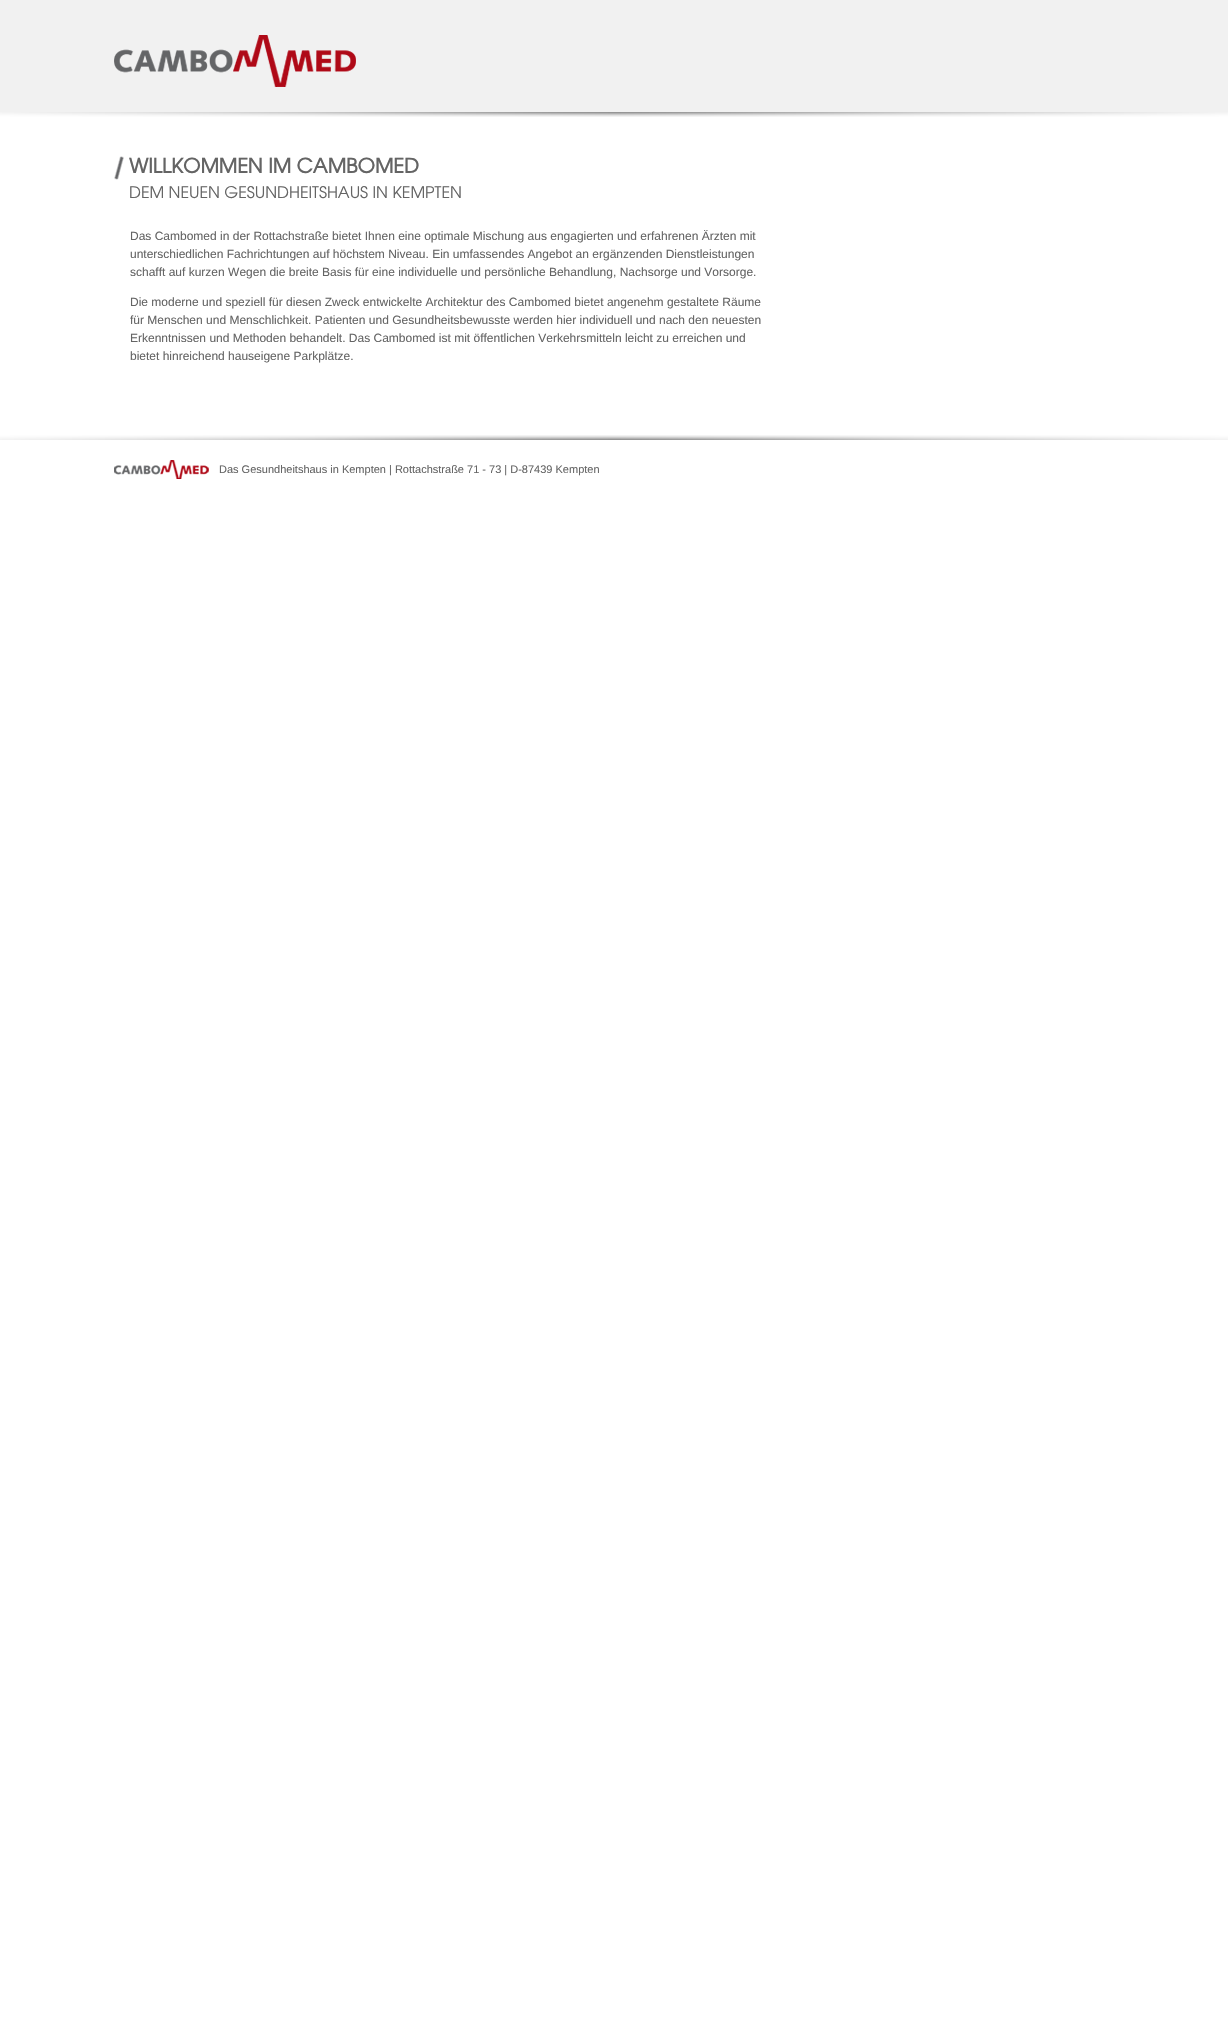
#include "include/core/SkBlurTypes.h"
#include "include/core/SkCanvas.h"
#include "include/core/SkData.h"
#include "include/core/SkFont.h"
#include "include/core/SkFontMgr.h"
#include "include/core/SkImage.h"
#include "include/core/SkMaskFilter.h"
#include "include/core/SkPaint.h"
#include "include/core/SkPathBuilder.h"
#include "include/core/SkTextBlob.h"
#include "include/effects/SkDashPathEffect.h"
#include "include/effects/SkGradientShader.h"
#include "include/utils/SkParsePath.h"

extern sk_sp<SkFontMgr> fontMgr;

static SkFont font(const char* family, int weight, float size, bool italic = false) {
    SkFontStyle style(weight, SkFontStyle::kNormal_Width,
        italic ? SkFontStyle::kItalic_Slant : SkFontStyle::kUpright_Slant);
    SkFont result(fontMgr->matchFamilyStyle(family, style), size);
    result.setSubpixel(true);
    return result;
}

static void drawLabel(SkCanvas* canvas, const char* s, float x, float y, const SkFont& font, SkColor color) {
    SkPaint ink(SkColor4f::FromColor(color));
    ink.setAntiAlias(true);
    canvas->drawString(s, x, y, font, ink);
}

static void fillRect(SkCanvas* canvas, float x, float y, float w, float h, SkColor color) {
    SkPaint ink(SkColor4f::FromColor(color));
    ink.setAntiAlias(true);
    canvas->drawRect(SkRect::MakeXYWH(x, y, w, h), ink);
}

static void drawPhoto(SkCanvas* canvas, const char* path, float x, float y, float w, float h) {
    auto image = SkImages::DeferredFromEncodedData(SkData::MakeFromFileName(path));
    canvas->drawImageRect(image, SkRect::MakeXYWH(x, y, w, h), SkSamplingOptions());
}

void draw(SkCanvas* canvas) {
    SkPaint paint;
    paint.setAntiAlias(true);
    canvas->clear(0xFFFFFFFF);
    drawPhoto(canvas, "assets/img1.png", 0, 112, 1228, 5);
    fillRect(canvas, 0, 0, 1228, 112, 0xFFF1F1F1);
    drawPhoto(canvas, "assets/img2.png", 114, 35, 242, 52);
    drawPhoto(canvas, "assets/img3.png", 114, 156, 10, 24);
    SkFont font1 = font("TeX Gyre Adventor", 700, 20);
    drawLabel(canvas, "WILLKOMMEN IM CAMBOMED", 129, 173, font1, 0xFF646464);
    SkFont font2 = font("TeX Gyre Adventor", 400, 16);
    drawLabel(canvas, "DEM NEUEN GESUNDHEITSHAUS IN KEMPTEN", 129, 198, font2, 0xFF646464);
    SkFont font3 = font("Liberation Sans", 400, 12);
    drawLabel(canvas, "Das Cambomed in der Rottachstraße bietet Ihnen eine optimale Mischung aus engagierten und erfahrenen Ärzten mit", 130, 240, font3, 0xFF646464);
    drawLabel(canvas, "unterschiedlichen Fachrichtungen auf höchstem Niveau. Ein umfassendes Angebot an ergänzenden Dienstleistungen", 130, 258, font3, 0xFF646464);
    drawLabel(canvas, "schafft auf kurzen Wegen die breite Basis für eine individuelle und persönliche Behandlung, Nachsorge und Vorsorge.", 130, 276, font3, 0xFF646464);
    drawLabel(canvas, "Die moderne und speziell für diesen Zweck entwickelte Architektur des Cambomed bietet angenehm gestaltete Räume", 130, 306, font3, 0xFF646464);
    drawLabel(canvas, "für Menschen und Menschlichkeit. Patienten und Gesundheitsbewusste werden hier individuell und nach den neuesten", 130, 324, font3, 0xFF646464);
    drawLabel(canvas, "Erkenntnissen und Methoden behandelt. Das Cambomed ist mit öffentlichen Verkehrsmitteln leicht zu erreichen und", 130, 342, font3, 0xFF646464);
    drawLabel(canvas, "bietet hinreichend hauseigene Parkplätze.", 130, 360, font3, 0xFF646464);
    drawPhoto(canvas, "assets/img4.png", 0, 435, 1228, 5);
    drawPhoto(canvas, "assets/img5.png", 114, 460, 95, 19);
    SkFont font4 = font("Liberation Sans", 400, 11);
    drawLabel(canvas, "Das Gesundheitshaus in Kempten | Rottachstraße 71 - 73 | D-87439 Kempten", 219, 473, font4, 0xFF646464);
}
